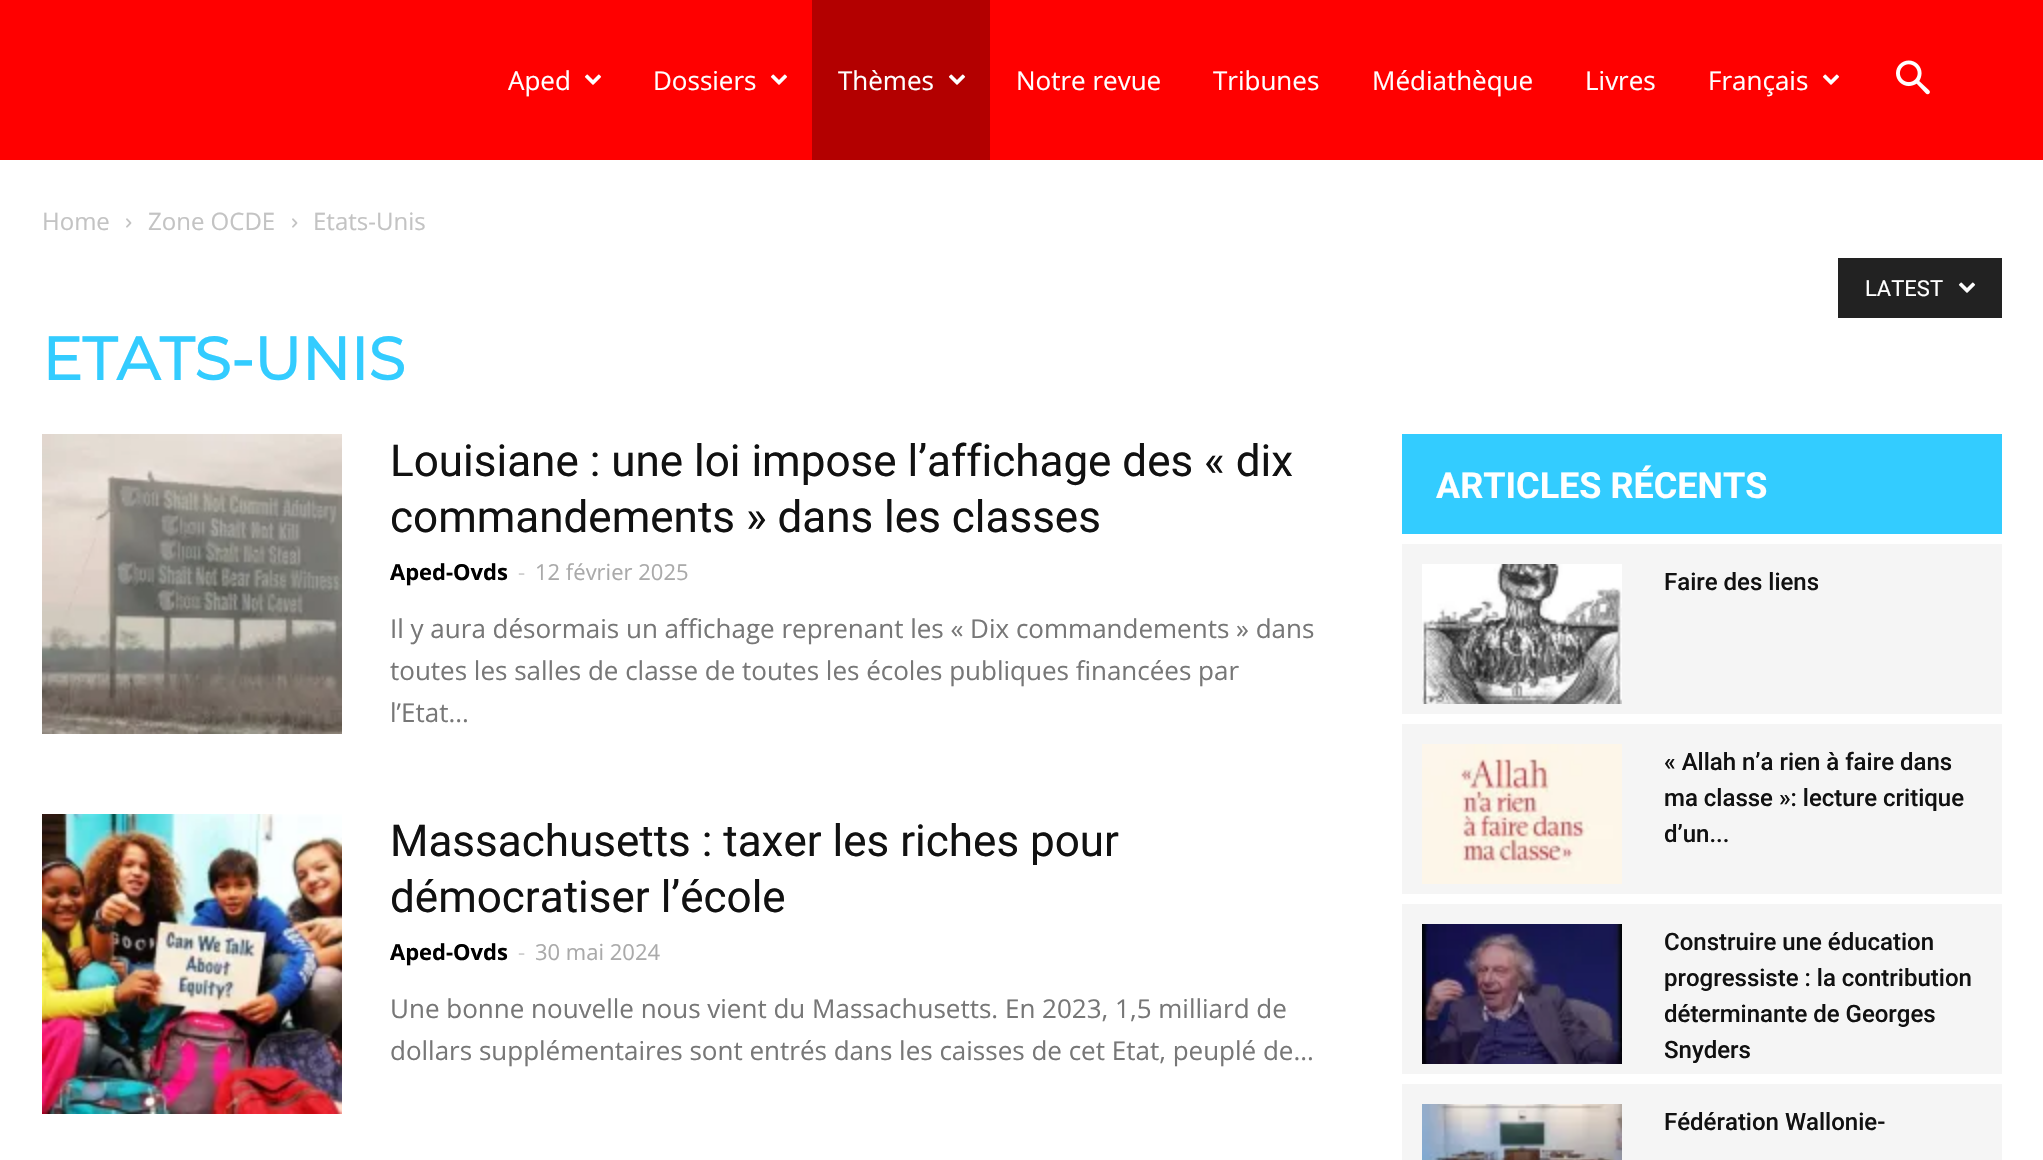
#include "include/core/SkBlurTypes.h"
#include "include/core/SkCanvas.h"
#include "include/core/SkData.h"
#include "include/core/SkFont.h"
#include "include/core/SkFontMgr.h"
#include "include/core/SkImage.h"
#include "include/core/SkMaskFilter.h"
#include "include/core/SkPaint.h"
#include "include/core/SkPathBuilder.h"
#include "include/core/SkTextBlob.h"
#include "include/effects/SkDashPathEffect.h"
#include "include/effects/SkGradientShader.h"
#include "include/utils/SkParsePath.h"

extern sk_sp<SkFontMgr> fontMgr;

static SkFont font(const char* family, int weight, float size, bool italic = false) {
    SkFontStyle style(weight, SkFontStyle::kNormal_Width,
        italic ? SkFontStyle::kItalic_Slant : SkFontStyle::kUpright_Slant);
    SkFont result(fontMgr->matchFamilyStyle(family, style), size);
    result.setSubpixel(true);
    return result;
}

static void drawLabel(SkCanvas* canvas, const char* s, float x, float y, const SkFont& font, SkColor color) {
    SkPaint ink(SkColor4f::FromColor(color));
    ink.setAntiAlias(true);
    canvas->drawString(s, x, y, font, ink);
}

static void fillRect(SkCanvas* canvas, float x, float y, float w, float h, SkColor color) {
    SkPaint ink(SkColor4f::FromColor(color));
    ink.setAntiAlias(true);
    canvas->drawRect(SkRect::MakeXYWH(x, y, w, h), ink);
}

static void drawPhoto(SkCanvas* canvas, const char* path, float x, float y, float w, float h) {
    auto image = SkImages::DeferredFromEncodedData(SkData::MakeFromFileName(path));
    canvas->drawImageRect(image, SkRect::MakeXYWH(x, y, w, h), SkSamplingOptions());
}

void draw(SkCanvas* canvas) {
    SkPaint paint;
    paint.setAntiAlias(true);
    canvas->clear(0xFFFFFFFF);
    fillRect(canvas, 0, 0, 2043, 160, 0xFFFF0000);
    SkFont font1 = font("Open Sans", 400, 26);
    drawLabel(canvas, "Aped", 508, 90, font1, 0xFFFFFFFF);
    drawPhoto(canvas, "assets/img1.png", 584, 74, 18, 11);
    drawLabel(canvas, "Dossiers", 653, 90, font1, 0xFFFFFFFF);
    drawPhoto(canvas, "assets/img1.png", 770, 74, 18, 11);
    fillRect(canvas, 812, 0, 178, 160, 0xFFB30000);
    drawLabel(canvas, "Thèmes", 838, 90, font1, 0xFFFFFFFF);
    drawPhoto(canvas, "assets/img2.png", 948, 74, 18, 11);
    drawLabel(canvas, "Notre revue", 1016, 90, font1, 0xFFFFFFFF);
    drawLabel(canvas, "Tribunes", 1213, 90, font1, 0xFFFFFFFF);
    drawLabel(canvas, "Médiathèque", 1372, 90, font1, 0xFFFFFFFF);
    drawLabel(canvas, "Livres", 1585, 90, font1, 0xFFFFFFFF);
    drawLabel(canvas, "Français", 1708, 90, font1, 0xFFFFFFFF);
    drawPhoto(canvas, "assets/img1.png", 1822, 74, 18, 11);
    drawPhoto(canvas, "assets/img3.png", 1896, 60, 34, 35);
    SkFont font2 = font("Open Sans", 400, 24);
    drawLabel(canvas, "Home", 42, 230, font2, 0xFFC3C3C3);
    drawPhoto(canvas, "assets/img4.png", 126, 218, 6, 10);
    drawLabel(canvas, "Zone OCDE", 148, 230, font2, 0xFFC3C3C3);
    drawPhoto(canvas, "assets/img4.png", 292, 218, 6, 10);
    drawLabel(canvas, "Etats-Unis", 313, 230, font2, 0xFFC3C3C3);
    SkFont font3 = font("Montserrat", 700, 60);
    drawLabel(canvas, "ETATS-UNIS", 42, 380, font3, 0xFF33CCFF);
    fillRect(canvas, 1838, 258, 164, 60, 0xFF222222);
    SkFont font4 = font("Roboto", 400, 22);
    drawLabel(canvas, "LATEST", 1865, 296, font4, 0xFFFFFFFF);
    drawPhoto(canvas, "assets/img5.png", 1958, 282, 18, 11);
    drawPhoto(canvas, "assets/img6.png", 42, 434, 300, 300);
    SkFont font5 = font("Roboto", 400, 44);
    drawLabel(canvas, "Louisiane : une loi impose l’affichage des « dix", 390, 476, font5, 0xFF111111);
    drawLabel(canvas, "commandements » dans les classes", 390, 532, font5, 0xFF111111);
    SkFont font6 = font("Open Sans", 700, 22);
    drawLabel(canvas, "Aped-Ovds", 390, 580, font6, 0xFF000000);
    SkFont font7 = font("Open Sans", 400, 22);
    drawLabel(canvas, "-", 518, 580, font7, 0xFFCCCCCC);
    drawLabel(canvas, "12 février 2025", 535, 580, font7, 0xFFAAAAAA);
    drawLabel(canvas, "Il y aura désormais un affichage reprenant les « Dix commandements » dans", 390, 638, font1, 0xFF777777);
    drawLabel(canvas, "toutes les salles de classe de toutes les écoles publiques financées par", 390, 680, font1, 0xFF777777);
    drawLabel(canvas, "l’Etat...", 390, 722, font1, 0xFF777777);
    drawPhoto(canvas, "assets/img7.png", 42, 814, 300, 300);
    drawLabel(canvas, "Massachusetts : taxer les riches pour", 390, 856, font5, 0xFF111111);
    drawLabel(canvas, "démocratiser l’école", 390, 912, font5, 0xFF111111);
    drawLabel(canvas, "Aped-Ovds", 390, 960, font6, 0xFF000000);
    drawLabel(canvas, "-", 518, 960, font7, 0xFFCCCCCC);
    drawLabel(canvas, "30 mai 2024", 535, 960, font7, 0xFFAAAAAA);
    drawLabel(canvas, "Une bonne nouvelle nous vient du Massachusetts. En 2023, 1,5 milliard de", 390, 1018, font1, 0xFF777777);
    drawLabel(canvas, "dollars supplémentaires sont entrés dans les caisses de cet Etat, peuplé de...", 390, 1060, font1, 0xFF777777);
    fillRect(canvas, 1402, 544, 600, 616, 0xFFF5F5F5);
    fillRect(canvas, 1402, 434, 600, 100, 0xFF33CCFF);
    SkFont font8 = font("Roboto", 700, 36);
    drawLabel(canvas, "ARTICLES RÉCENTS", 1436, 498, font8, 0xFFFFFFFF);
    drawPhoto(canvas, "assets/img8.png", 1422, 564, 200, 140);
    SkFont font9 = font("Roboto", 500, 24);
    drawLabel(canvas, "Faire des liens", 1664, 590, font9, 0xFF111111);
    fillRect(canvas, 1402, 714, 600, 10, 0xFFFFFFFF);
    drawPhoto(canvas, "assets/img9.png", 1422, 744, 200, 140);
    drawLabel(canvas, "« Allah n’a rien à faire dans", 1664, 770, font9, 0xFF111111);
    drawLabel(canvas, "ma classe »: lecture critique", 1664, 806, font9, 0xFF111111);
    drawLabel(canvas, "d’un...", 1664, 842, font9, 0xFF111111);
    fillRect(canvas, 1402, 894, 600, 10, 0xFFFFFFFF);
    drawPhoto(canvas, "assets/img10.png", 1422, 924, 200, 140);
    drawLabel(canvas, "Construire une éducation", 1664, 950, font9, 0xFF111111);
    drawLabel(canvas, "progressiste : la contribution", 1664, 986, font9, 0xFF111111);
    drawLabel(canvas, "déterminante de Georges", 1664, 1022, font9, 0xFF111111);
    drawLabel(canvas, "Snyders", 1664, 1058, font9, 0xFF111111);
    fillRect(canvas, 1402, 1074, 600, 10, 0xFFFFFFFF);
    drawPhoto(canvas, "assets/img11.png", 1422, 1104, 200, 56);
    drawLabel(canvas, "Fédération Wallonie-", 1664, 1130, font9, 0xFF111111);
}
